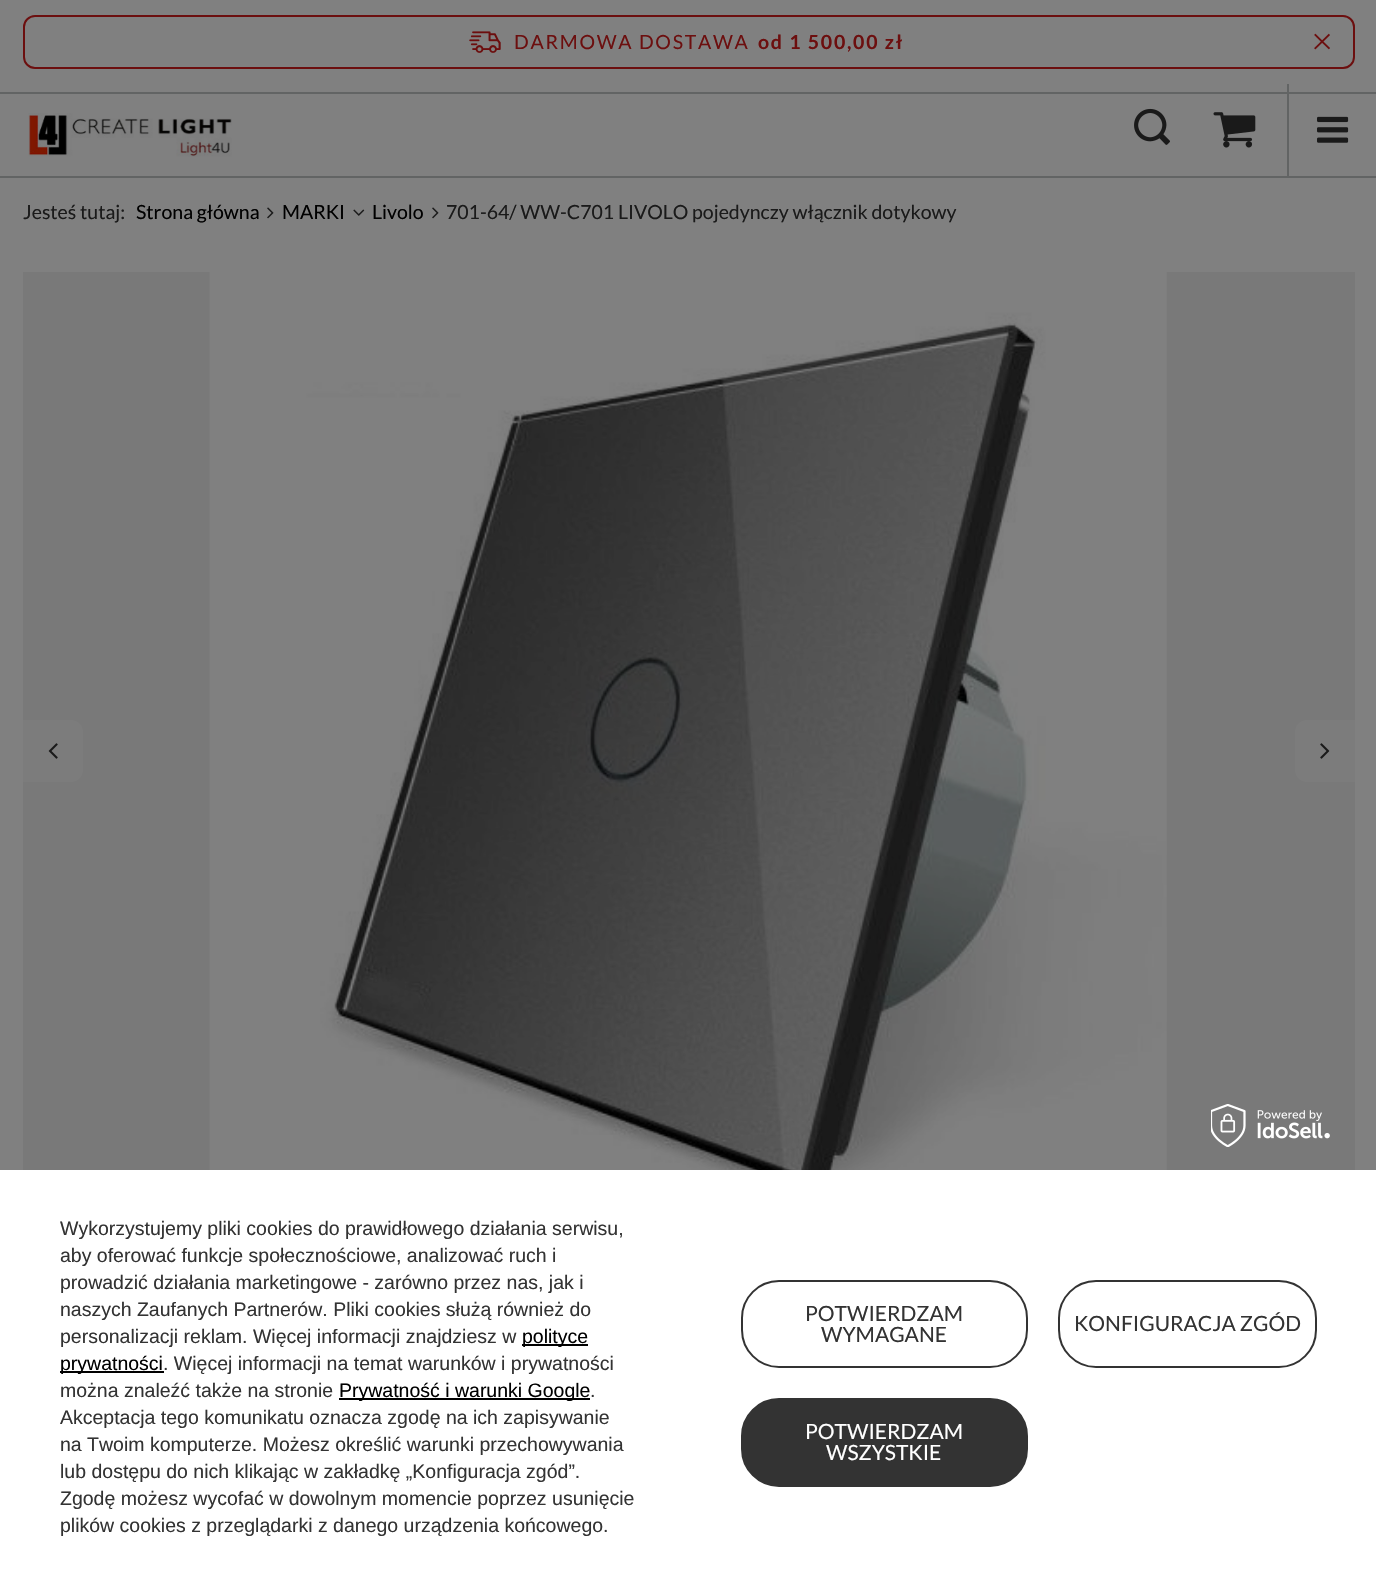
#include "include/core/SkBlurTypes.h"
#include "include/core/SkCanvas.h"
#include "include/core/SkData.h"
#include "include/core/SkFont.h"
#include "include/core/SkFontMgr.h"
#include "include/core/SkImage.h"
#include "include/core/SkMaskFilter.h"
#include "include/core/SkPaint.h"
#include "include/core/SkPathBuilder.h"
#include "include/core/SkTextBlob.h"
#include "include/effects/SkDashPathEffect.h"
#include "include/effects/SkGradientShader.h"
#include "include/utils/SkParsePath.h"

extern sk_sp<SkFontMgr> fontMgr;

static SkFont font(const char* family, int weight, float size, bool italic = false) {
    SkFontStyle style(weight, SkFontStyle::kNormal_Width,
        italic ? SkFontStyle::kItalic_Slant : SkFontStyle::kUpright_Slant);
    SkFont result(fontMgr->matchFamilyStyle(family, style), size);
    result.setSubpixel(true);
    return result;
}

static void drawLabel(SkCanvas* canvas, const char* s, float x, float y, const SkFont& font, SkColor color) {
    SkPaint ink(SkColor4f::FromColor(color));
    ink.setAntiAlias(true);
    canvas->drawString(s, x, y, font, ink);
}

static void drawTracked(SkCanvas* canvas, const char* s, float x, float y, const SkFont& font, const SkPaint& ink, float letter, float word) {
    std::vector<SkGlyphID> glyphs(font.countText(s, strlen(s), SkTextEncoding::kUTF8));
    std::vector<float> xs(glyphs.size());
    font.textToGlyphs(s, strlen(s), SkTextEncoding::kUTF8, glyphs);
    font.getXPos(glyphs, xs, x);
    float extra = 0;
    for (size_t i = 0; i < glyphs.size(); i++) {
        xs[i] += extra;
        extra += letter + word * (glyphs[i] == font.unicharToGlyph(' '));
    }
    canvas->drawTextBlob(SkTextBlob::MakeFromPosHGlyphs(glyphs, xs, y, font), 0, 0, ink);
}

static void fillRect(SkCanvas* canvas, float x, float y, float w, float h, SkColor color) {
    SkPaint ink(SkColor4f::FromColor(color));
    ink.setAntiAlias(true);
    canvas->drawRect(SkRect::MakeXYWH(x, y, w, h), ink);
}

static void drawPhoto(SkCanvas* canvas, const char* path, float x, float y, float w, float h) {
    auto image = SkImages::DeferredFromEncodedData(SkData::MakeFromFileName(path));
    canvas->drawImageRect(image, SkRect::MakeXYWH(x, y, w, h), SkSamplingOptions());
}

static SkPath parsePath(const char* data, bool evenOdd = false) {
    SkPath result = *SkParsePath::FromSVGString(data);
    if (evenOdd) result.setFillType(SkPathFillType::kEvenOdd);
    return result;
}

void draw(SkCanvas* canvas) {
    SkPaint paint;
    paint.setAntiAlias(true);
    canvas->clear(0xFF808080);
    fillRect(canvas, 0, 176, 1376, 2, 0xFF626464);
    paint.setStroke(true);
    paint.setStrokeWidth(2);
    paint.setColor(0xFF6C0F0F);
    canvas->drawRoundRect(SkRect::MakeXYWH(24, 16, 1330, 52), 11, 11, paint);
    drawPhoto(canvas, "assets/img1.png", 469, 31, 32, 22);
    SkFont font1 = font("Lato", 400, 19.5f);
    paint.setStroke(false);
    drawTracked(canvas, "DARMOWA DOSTAWA", 514, 49, font1, paint, 1.75f, 0);
    SkFont font2 = font("Lato", 700, 19.5f);
    drawTracked(canvas, "od 1 500,00 zł", 758, 49, font2, paint, 1.75f, 0);
    drawPhoto(canvas, "assets/img2.png", 1314, 33, 16, 17);
    fillRect(canvas, 1287, 84, 2, 92, 0xFF626464);
    drawPhoto(canvas, "assets/img3.png", 1317, 116, 32, 27);
    fillRect(canvas, 0, 92, 1376, 2, 0xFF626464);
    drawPhoto(canvas, "assets/img4.png", 28, 113, 204, 44);
    drawPhoto(canvas, "assets/img5.png", 1134, 108, 36, 37);
    drawPhoto(canvas, "assets/img6.png", 1213, 112, 43, 36);
    drawLabel(canvas, "Jesteś tutaj:", 23, 219, font1, 0xFF1A1A1A);
    drawLabel(canvas, "Strona główna", 136, 219, font1, 0xFF000000);
    drawPhoto(canvas, "assets/img7.png", 267, 207, 7, 12);
    drawLabel(canvas, "MARKI", 282, 219, font1, 0xFF000000);
    drawPhoto(canvas, "assets/img8.png", 353, 209, 12, 7);
    drawLabel(canvas, "Livolo", 372, 219, font1, 0xFF000000);
    drawPhoto(canvas, "assets/img7.png", 432, 207, 7, 12);
    drawLabel(canvas, "701-64/ WW-C701 LIVOLO pojedynczy włącznik dotykowy", 446, 219, font1, 0xFF1A1A1A);
    fillRect(canvas, 23, 272, 1332, 898, 0xFF797979);
    drawPhoto(canvas, "assets/img9.png", 209, 272, 958, 898);
    paint.setColor(0xFF7C7C7C);
    canvas->drawPath(parsePath("M23 720H71C77.5 720 83 725.5 83 732V770C83 776.5 77.5 782 71 782H23Z"), paint);
    drawPhoto(canvas, "assets/img10.png", 48, 743, 10, 16);
    canvas->drawPath(parsePath("M1307 720H1355V782H1307C1300.5 782 1295 776.5 1295 770V732C1295 725.5 1300.5 720 1307 720Z"), paint);
    drawPhoto(canvas, "assets/img11.png", 1320, 743, 10, 16);
    fillRect(canvas, 0, 1170, 1376, 425, 0xFFFFFFFF);
    drawPhoto(canvas, "assets/img12.png", 1211, 1104, 119, 43);
    SkFont font3 = font("Liberation Sans", 400, 19.5f);
    drawLabel(canvas, "Wykorzystujemy pliki cookies do prawidłowego działania serwisu,", 60, 1235, font3, 0xFF333333);
    drawLabel(canvas, "aby oferować funkcje społecznościowe, analizować ruch i", 60, 1262, font3, 0xFF333333);
    drawLabel(canvas, "prowadzić działania marketingowe - zarówno przez nas, jak i", 60, 1289, font3, 0xFF333333);
    drawLabel(canvas, "naszych Zaufanych Partnerów. Pliki cookies służą również do", 60, 1316, font3, 0xFF333333);
    drawLabel(canvas, "personalizacji reklam. Więcej informacji znajdziesz w", 60, 1343, font3, 0xFF333333);
    fillRect(canvas, 522, 1344, 66, 2, 0xFF000000);
    drawLabel(canvas, "polityce", 522, 1343, font3, 0xFF000000);
    fillRect(canvas, 60, 1371, 104, 2, 0xFF000000);
    drawLabel(canvas, "prywatności", 60, 1370, font3, 0xFF000000);
    drawLabel(canvas, ". Więcej informacji na temat warunków i prywatności", 163, 1370, font3, 0xFF333333);
    drawLabel(canvas, "można znaleźć także na stronie", 60, 1397, font3, 0xFF333333);
    fillRect(canvas, 339, 1398, 251, 2, 0xFF000000);
    drawLabel(canvas, "Prywatność i warunki Google", 339, 1397, font3, 0xFF000000);
    drawLabel(canvas, ".", 590, 1397, font3, 0xFF333333);
    drawLabel(canvas, "Akceptacja tego komunikatu oznacza zgodę na ich zapisywanie", 60, 1424, font3, 0xFF333333);
    drawLabel(canvas, "na Twoim komputerze. Możesz określić warunki przechowywania", 60, 1451, font3, 0xFF333333);
    drawLabel(canvas, "lub dostępu do nich klikając w zakładkę „Konfiguracja zgód”.", 60, 1478, font3, 0xFF333333);
    drawLabel(canvas, "Zgodę możesz wycofać w dowolnym momencie poprzez usunięcie", 60, 1505, font3, 0xFF333333);
    drawLabel(canvas, "plików cookies z przeglądarki z danego urządzenia końcowego.", 60, 1532, font3, 0xFF333333);
    paint.setStroke(true);
    paint.setColor(0xFF333333);
    canvas->drawRoundRect(SkRect::MakeXYWH(742, 1281, 285, 86), 37, 37, paint);
    SkFont font4 = font("Lato", 400, 21);
    drawLabel(canvas, "POTWIERDZAM", 805, 1321, font4, 0xFF333333);
    drawLabel(canvas, "WYMAGANE", 821, 1342, font4, 0xFF333333);
    canvas->drawRoundRect(SkRect::MakeXYWH(1059, 1281, 257, 86), 37, 37, paint);
    drawLabel(canvas, "KONFIGURACJA ZGÓD", 1074, 1331, font4, 0xFF333333);
    paint.setStroke(false);
    canvas->drawRoundRect(SkRect::MakeXYWH(742, 1399, 285, 87), 37, 37, paint);
    paint.setStroke(true);
    canvas->drawRoundRect(SkRect::MakeXYWH(742, 1399, 285, 87), 37, 37, paint);
    drawLabel(canvas, "POTWIERDZAM", 805, 1439, font4, 0xFFFFFFFF);
    drawLabel(canvas, "WSZYSTKIE", 826, 1460, font4, 0xFFFFFFFF);
}
